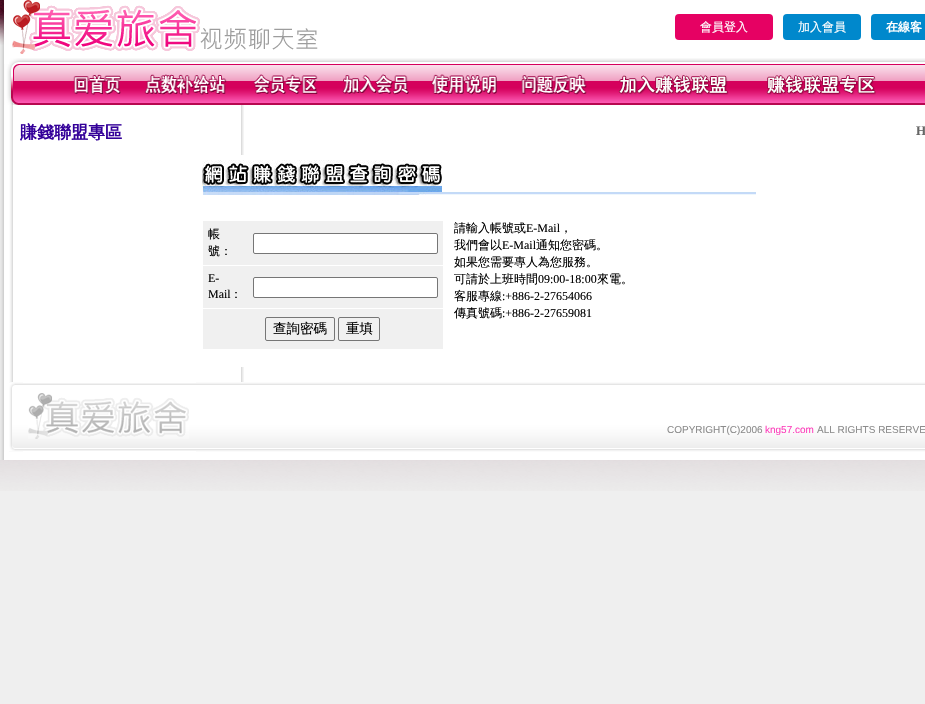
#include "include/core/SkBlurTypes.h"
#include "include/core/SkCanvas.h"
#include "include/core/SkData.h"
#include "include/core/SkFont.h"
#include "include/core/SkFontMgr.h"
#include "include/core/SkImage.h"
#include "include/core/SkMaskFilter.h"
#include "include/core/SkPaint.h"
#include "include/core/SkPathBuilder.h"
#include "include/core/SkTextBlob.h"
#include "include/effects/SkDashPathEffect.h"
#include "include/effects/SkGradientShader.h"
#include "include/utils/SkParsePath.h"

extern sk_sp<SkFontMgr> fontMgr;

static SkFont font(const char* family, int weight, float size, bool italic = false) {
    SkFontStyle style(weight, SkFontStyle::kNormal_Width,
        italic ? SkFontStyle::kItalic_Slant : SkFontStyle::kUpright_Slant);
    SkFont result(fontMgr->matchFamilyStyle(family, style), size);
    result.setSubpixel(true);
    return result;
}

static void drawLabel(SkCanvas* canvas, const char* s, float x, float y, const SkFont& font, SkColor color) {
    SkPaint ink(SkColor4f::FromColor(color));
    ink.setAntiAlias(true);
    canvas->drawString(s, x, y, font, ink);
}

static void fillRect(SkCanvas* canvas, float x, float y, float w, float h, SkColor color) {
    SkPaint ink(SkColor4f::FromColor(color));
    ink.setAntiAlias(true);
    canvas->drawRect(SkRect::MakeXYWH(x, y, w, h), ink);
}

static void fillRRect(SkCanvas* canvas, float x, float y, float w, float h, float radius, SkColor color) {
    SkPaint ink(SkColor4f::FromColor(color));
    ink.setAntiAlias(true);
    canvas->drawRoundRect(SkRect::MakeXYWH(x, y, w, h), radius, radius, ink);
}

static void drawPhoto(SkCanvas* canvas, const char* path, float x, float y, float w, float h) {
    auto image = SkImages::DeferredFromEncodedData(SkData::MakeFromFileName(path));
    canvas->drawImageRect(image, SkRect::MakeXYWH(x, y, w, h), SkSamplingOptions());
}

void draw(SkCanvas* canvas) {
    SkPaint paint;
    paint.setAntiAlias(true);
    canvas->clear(0xFFEFEFEF);
    drawPhoto(canvas, "assets/img1.png", 0, 460, 925, 31);
    fillRect(canvas, 244, 105, 681, 277, 0xFFFFFFFF);
    drawPhoto(canvas, "assets/img2.png", 0, 45, 244, 415);
    drawPhoto(canvas, "assets/img3.png", 0, 0, 4, 45);
    fillRect(canvas, 4, 0, 921, 64, 0xFFFFFFFF);
    drawPhoto(canvas, "assets/img4.png", 4, 0, 314, 54);
    fillRRect(canvas, 675, 14, 98, 26, 4, 0xFFE60163);
    SkFont font1 = font("WenQuanYi Zen Hei", 500, 12);
    drawLabel(canvas, "會員登入", 700, 31, font1, 0xFFFFFFFF);
    fillRRect(canvas, 783, 14, 78, 26, 4, 0xFF0088CC);
    drawLabel(canvas, "加入會員", 798, 31, font1, 0xFFFFFFFF);
    fillRRect(canvas, 871, 14, 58, 26, 4, 0xFF0088CC);
    SkFont font2 = font("WenQuanYi Zen Hei", 700, 12);
    drawLabel(canvas, "在線客", 886, 31, font2, 0xFFFFFFFF);
    drawPhoto(canvas, "assets/img5.png", 9, 58, 916, 6);
    drawPhoto(canvas, "assets/img6.png", 4, 64, 16, 41);
    drawPhoto(canvas, "assets/img7.png", 20, 64, 905, 41);
    drawPhoto(canvas, "assets/img8.png", 73, 74, 48, 21);
    drawPhoto(canvas, "assets/img9.png", 144, 74, 83, 21);
    drawPhoto(canvas, "assets/img10.png", 253, 74, 65, 21);
    drawPhoto(canvas, "assets/img11.png", 342, 74, 67, 21);
    drawPhoto(canvas, "assets/img12.png", 431, 74, 66, 21);
    drawPhoto(canvas, "assets/img13.png", 521, 74, 66, 21);
    drawPhoto(canvas, "assets/img14.png", 618, 75, 111, 20);
    drawPhoto(canvas, "assets/img15.png", 766, 75, 110, 20);
    SkFont font3 = font("WenQuanYi Zen Hei", 700, 17);
    drawLabel(canvas, "賺錢聯盟專區", 20, 138, font3, 0xFF330099);
    SkFont font4 = font("Liberation Serif", 700, 13);
    drawLabel(canvas, "H", 916, 135, font4, 0xFF666666);
    fillRect(canvas, 241, 155, 3, 212, 0xFFFFFFFF);
    drawPhoto(canvas, "assets/img16.png", 202, 160, 554, 35);
    fillRect(canvas, 203, 221, 240, 44, 0xFFF0F0F0);
    drawLabel(canvas, "帳", 208, 238, font1, 0xFF000000);
    drawLabel(canvas, "號：", 208, 255, font1, 0xFF000000);
    paint.setColor(0xFFFFFFFF);
    canvas->drawRoundRect(SkRect::MakeXYWH(253.5f, 233.5f, 184, 20), 1.5f, 1.5f, paint);
    paint.setStroke(true);
    paint.setStrokeWidth(1);
    paint.setColor(0xFF767676);
    canvas->drawRoundRect(SkRect::MakeXYWH(253.5f, 233.5f, 184, 20), 1.5f, 1.5f, paint);
    fillRect(canvas, 203, 266, 240, 42, 0xFFF0F0F0);
    SkFont font5 = font("Liberation Serif", 400, 12);
    drawLabel(canvas, "E-", 208, 282, font5, 0xFF000000);
    drawLabel(canvas, "Mail", 208, 298, font5, 0xFF000000);
    drawLabel(canvas, "：", 230, 298, font1, 0xFF000000);
    paint.setStroke(false);
    paint.setColor(0xFFFFFFFF);
    canvas->drawRoundRect(SkRect::MakeXYWH(253.5f, 277.5f, 184, 20), 1.5f, 1.5f, paint);
    paint.setStroke(true);
    paint.setColor(0xFF767676);
    canvas->drawRoundRect(SkRect::MakeXYWH(253.5f, 277.5f, 184, 20), 1.5f, 1.5f, paint);
    fillRect(canvas, 203, 309, 240, 40, 0xFFF0F0F0);
    canvas->drawRoundRect(SkRect::MakeXYWH(265.5f, 317.5f, 69, 23), 1.5f, 1.5f, paint);
    SkFont font6 = font("WenQuanYi Zen Hei", 500, 13.5f);
    drawLabel(canvas, "查詢密碼", 273, 333, font6, 0xFF000000);
    canvas->drawRoundRect(SkRect::MakeXYWH(338.5f, 317.5f, 41, 23), 1.5f, 1.5f, paint);
    drawLabel(canvas, "重填", 346, 333, font6, 0xFF000000);
    drawLabel(canvas, "請輸入帳號或", 454, 232, font1, 0xFF000000);
    drawLabel(canvas, "E-Mail", 526, 232, font5, 0xFF000000);
    drawLabel(canvas, "，", 560, 232, font1, 0xFF000000);
    drawLabel(canvas, "我們會以", 454, 249, font1, 0xFF000000);
    drawLabel(canvas, "E-Mail", 502, 249, font5, 0xFF000000);
    drawLabel(canvas, "通知您密碼。", 536, 249, font1, 0xFF000000);
    drawLabel(canvas, "如果您需要專人為您服務。", 454, 266, font1, 0xFF000000);
    drawLabel(canvas, "可請於上班時間", 454, 283, font1, 0xFF000000);
    drawLabel(canvas, "09:00-18:00", 538, 283, font5, 0xFF000000);
    drawLabel(canvas, "來電。", 597, 283, font1, 0xFF000000);
    drawLabel(canvas, "客服專線", 454, 300, font1, 0xFF000000);
    drawLabel(canvas, ":+886-2-27654066", 502, 300, font5, 0xFF000000);
    drawLabel(canvas, "傳真號碼", 454, 317, font1, 0xFF000000);
    drawLabel(canvas, ":+886-2-27659081", 502, 317, font5, 0xFF000000);
    drawPhoto(canvas, "assets/img17.png", 9, 382, 14, 70);
    drawPhoto(canvas, "assets/img18.png", 9, 383, 6, 68);
    drawPhoto(canvas, "assets/img19.png", 23, 383, 173, 68);
    drawPhoto(canvas, "assets/img20.png", 28, 393, 161, 46);
    drawPhoto(canvas, "assets/img21.png", 196, 382, 729, 70);
    SkFont font7 = font("Liberation Sans", 400, 10);
    drawLabel(canvas, "COPYRIGHT(C)2006", 667, 433, font7, 0xFF8C8C8C);
    drawLabel(canvas, "kng57.com", 765, 433, font7, 0xFFFE3EBB);
    drawLabel(canvas, "ALL RIGHTS RESERVE", 817, 433, font7, 0xFF8C8C8C);
    fillRect(canvas, 4, 452, 921, 8, 0xFFFFFFFF);
}
